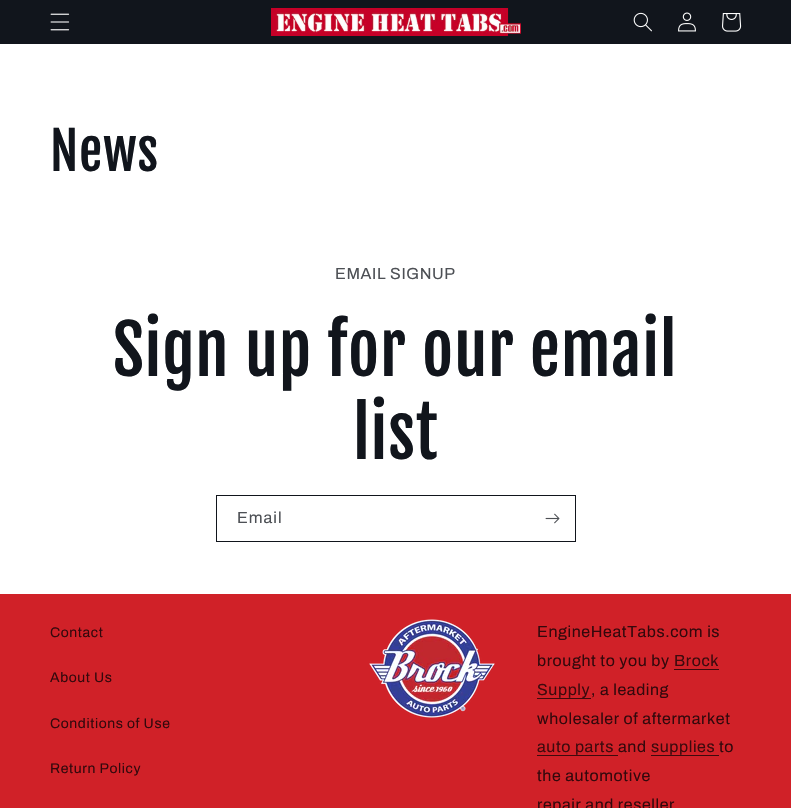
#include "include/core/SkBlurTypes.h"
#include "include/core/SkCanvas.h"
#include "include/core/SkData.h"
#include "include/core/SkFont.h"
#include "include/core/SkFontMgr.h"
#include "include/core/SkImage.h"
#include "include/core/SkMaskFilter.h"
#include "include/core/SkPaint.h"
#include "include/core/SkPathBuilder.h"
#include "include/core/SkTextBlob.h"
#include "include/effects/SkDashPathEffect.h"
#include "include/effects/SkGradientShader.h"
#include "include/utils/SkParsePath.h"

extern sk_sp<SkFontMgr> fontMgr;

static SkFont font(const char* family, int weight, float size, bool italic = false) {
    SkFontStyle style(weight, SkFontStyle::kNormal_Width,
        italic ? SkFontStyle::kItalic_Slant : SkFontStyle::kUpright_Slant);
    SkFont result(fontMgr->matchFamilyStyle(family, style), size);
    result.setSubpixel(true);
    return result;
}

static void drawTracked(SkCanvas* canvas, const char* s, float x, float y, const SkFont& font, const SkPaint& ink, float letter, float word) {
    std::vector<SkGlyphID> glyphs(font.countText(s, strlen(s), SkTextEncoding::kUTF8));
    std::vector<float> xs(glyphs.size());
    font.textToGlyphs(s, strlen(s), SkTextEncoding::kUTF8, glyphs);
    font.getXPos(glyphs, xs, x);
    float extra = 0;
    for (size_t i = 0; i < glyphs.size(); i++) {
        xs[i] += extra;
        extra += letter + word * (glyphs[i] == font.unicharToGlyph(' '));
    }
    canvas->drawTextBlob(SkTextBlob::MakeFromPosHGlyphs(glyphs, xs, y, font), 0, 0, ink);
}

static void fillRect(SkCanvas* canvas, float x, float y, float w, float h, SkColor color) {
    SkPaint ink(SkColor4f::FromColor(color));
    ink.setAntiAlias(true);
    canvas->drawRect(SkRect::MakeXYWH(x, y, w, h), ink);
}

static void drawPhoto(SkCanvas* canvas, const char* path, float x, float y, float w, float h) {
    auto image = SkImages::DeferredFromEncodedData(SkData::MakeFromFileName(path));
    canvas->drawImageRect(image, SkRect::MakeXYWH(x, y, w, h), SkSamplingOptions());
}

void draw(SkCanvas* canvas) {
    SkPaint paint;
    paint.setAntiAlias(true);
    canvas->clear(0xFFFFFFFF);
    fillRect(canvas, 0, 0, 791, 44, 0xFF11151C);
    drawPhoto(canvas, "assets/img1.png", 50, 13, 20, 18);
    drawPhoto(canvas, "assets/img2.png", 271, 8, 250, 28);
    drawPhoto(canvas, "assets/img3.png", 633, 12, 19, 20);
    drawPhoto(canvas, "assets/img4.png", 678, 12, 18, 20);
    drawPhoto(canvas, "assets/img5.png", 722, 13, 20, 19);
    SkFont font1 = font("Fjalla One", 400, 52);
    paint.setColor(0xFF11151C);
    drawTracked(canvas, "News", 50, 171, font1, paint, 0.75f, 0);
    SkFont font2 = font("Archivo", 400, 16);
    paint.setColor(0xFF4D5055);
    drawTracked(canvas, "EMAIL SIGNUP", 335, 279, font2, paint, 0.6f, 0);
    SkFont font3 = font("Fjalla One", 400, 67.5f);
    paint.setColor(0xFF11151C);
    drawTracked(canvas, "Sign up for our email", 113, 376, font3, paint, 0.75f, 0);
    drawTracked(canvas, "list", 353, 459, font3, paint, 0.75f, 0);
    paint.setStroke(true);
    paint.setStrokeWidth(1);
    canvas->drawRect(SkRect::MakeXYWH(216.5f, 495.5f, 359, 46), paint);
    paint.setStroke(false);
    paint.setColor(0xFF4D5055);
    drawTracked(canvas, "Email", 237, 523, font2, paint, 1, 0);
    drawPhoto(canvas, "assets/img6.png", 545, 513, 15, 11);
    fillRect(canvas, 0, 594, 791, 214, 0xFFD02128);
    SkFont font4 = font("Archivo", 400, 14);
    paint.setColor(0xFF34080C);
    drawTracked(canvas, "Contact", 50, 637, font4, paint, 0.6f, 0);
    drawTracked(canvas, "About Us", 50, 682, font4, paint, 0.6f, 0);
    drawTracked(canvas, "Conditions of Use", 50, 728, font4, paint, 0.6f, 0);
    drawTracked(canvas, "Return Policy", 50, 773, font4, paint, 0.6f, 0);
    drawPhoto(canvas, "assets/img7.png", 369, 619, 126, 99);
    drawTracked(canvas, "EngineHeatTabs.com is", 537, 637, font2, paint, 0.6f, 0);
    drawTracked(canvas, "brought to you by", 537, 666, font2, paint, 0.6f, 0);
    paint.setColor(0xFF3E0A0D);
    drawTracked(canvas, "Brock", 674, 666, font2, paint, 0.6f, 0);
    fillRect(canvas, 674, 669, 45, 1, 0xFF3E0A0D);
    drawTracked(canvas, "Supply", 537, 695, font2, paint, 0.6f, 0);
    fillRect(canvas, 537, 698, 54, 1, 0xFF3E0A0D);
    paint.setColor(0xFF34080C);
    drawTracked(canvas, ", a leading", 591, 695, font2, paint, 0.6f, 0);
    drawTracked(canvas, "wholesaler of aftermarket", 537, 724, font2, paint, 0.6f, 0);
    paint.setColor(0xFF3E0A0D);
    drawTracked(canvas, "auto parts", 537, 752, font2, paint, 0.6f, 0);
    fillRect(canvas, 537, 755, 81, 1, 0xFF3E0A0D);
    paint.setColor(0xFF34080C);
    drawTracked(canvas, "and", 618, 752, font2, paint, 0.6f, 0);
    paint.setColor(0xFF3E0A0D);
    drawTracked(canvas, "supplies", 651, 752, font2, paint, 0.6f, 0);
    fillRect(canvas, 651, 755, 68, 1, 0xFF3E0A0D);
    paint.setColor(0xFF34080C);
    drawTracked(canvas, "to", 719, 752, font2, paint, 0.6f, 0);
    drawTracked(canvas, "the automotive", 537, 781, font2, paint, 0.6f, 0);
    drawTracked(canvas, "repair and reseller", 537, 810, font2, paint, 0.6f, 0);
}
